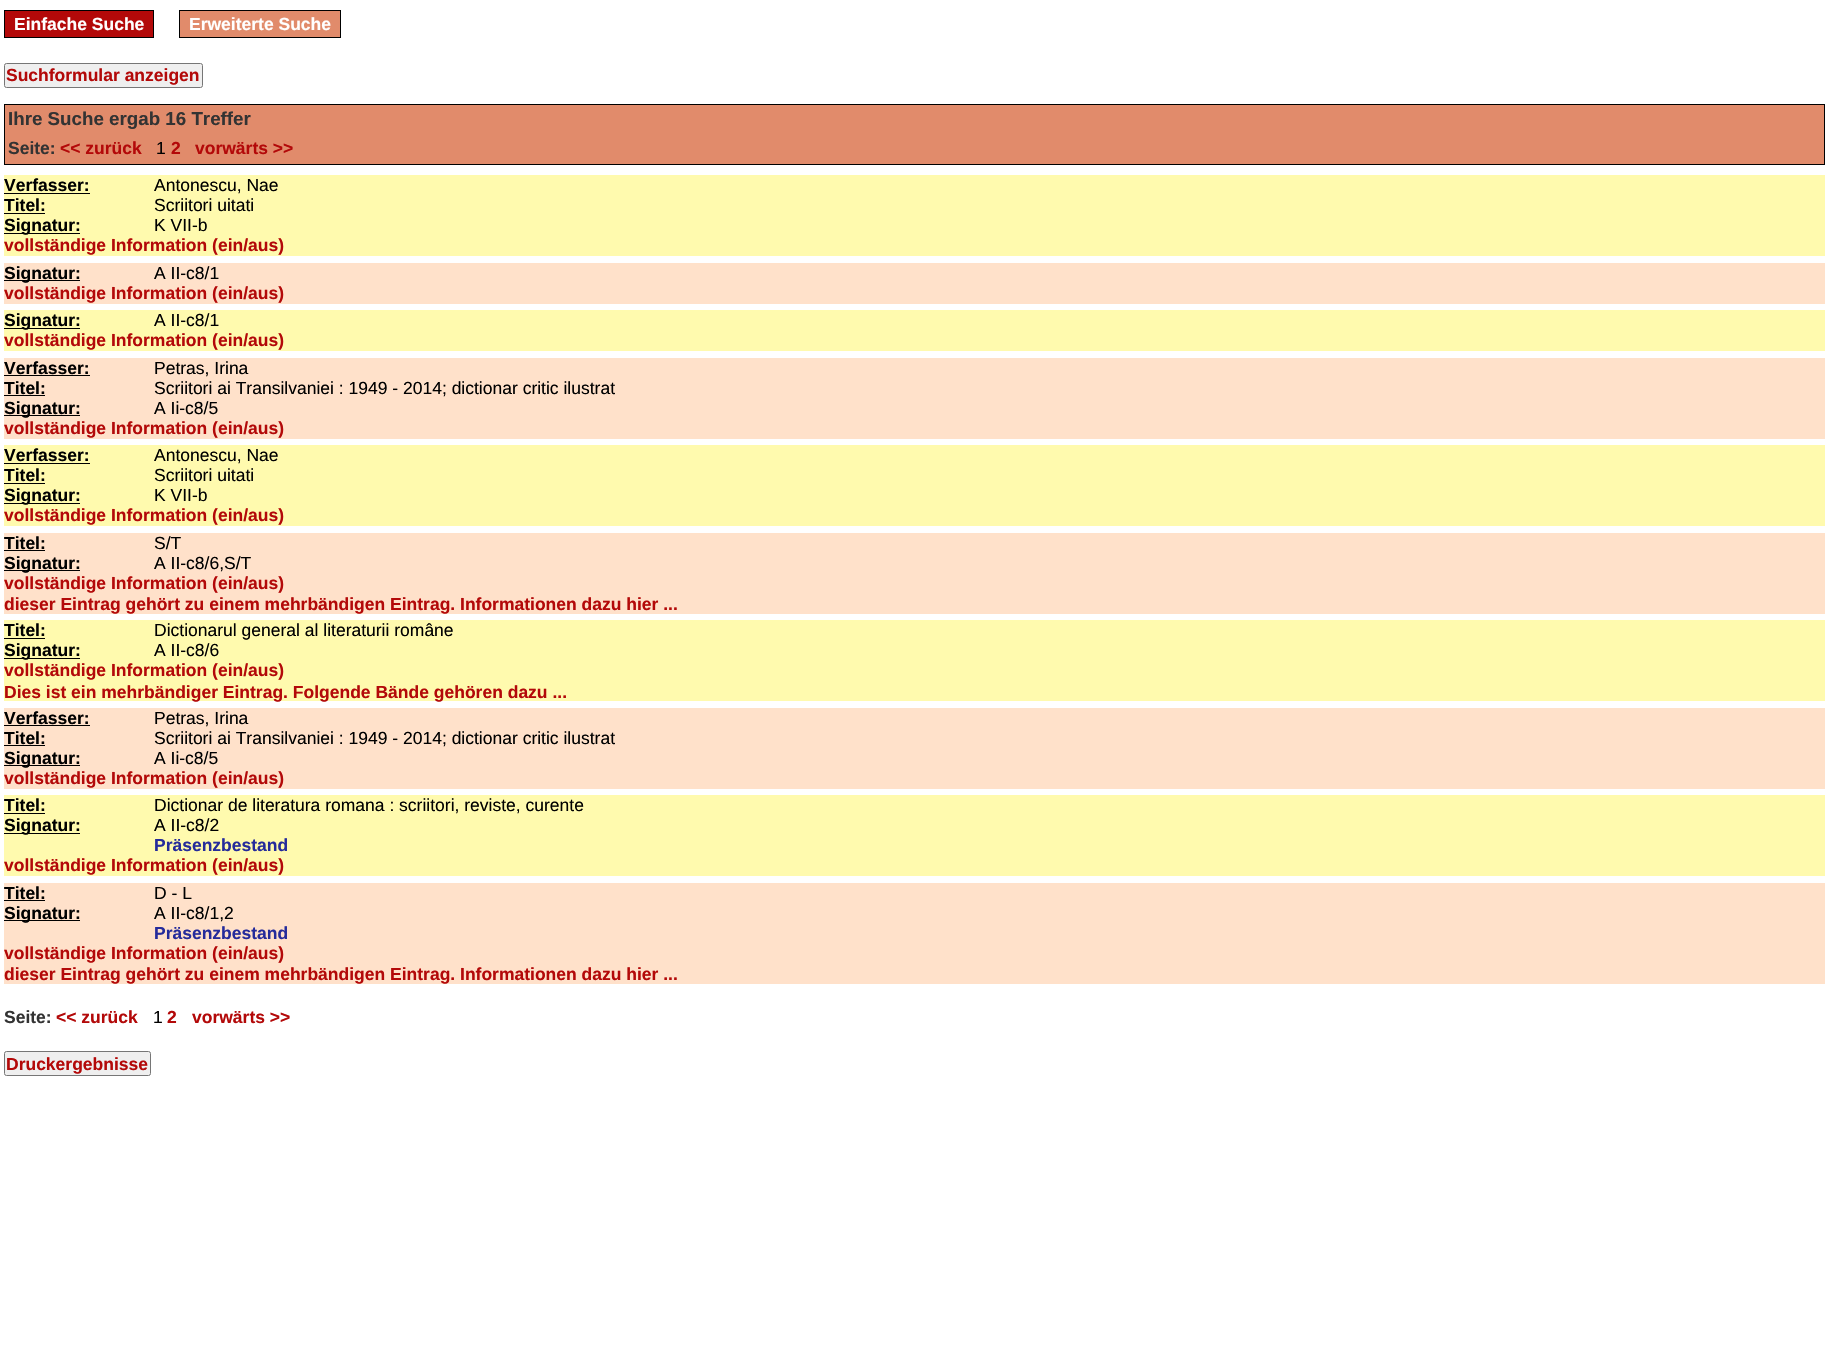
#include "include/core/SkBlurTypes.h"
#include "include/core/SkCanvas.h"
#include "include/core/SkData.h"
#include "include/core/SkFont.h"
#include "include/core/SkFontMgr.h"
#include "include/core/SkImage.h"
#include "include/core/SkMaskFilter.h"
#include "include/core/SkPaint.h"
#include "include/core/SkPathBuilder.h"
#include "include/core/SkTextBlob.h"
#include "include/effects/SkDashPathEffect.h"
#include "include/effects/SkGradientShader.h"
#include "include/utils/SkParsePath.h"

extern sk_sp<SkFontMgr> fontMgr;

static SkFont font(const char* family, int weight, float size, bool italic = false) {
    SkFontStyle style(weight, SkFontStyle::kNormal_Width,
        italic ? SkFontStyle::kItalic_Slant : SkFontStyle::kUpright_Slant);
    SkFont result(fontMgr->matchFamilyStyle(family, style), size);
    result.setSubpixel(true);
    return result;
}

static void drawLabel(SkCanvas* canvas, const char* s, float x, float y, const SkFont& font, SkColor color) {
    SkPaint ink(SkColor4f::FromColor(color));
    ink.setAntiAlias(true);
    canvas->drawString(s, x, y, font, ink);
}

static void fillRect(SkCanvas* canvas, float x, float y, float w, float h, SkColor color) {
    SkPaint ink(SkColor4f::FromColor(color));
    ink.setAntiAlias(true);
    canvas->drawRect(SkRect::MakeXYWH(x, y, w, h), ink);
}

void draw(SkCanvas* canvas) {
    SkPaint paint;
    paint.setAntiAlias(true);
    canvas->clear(0xFFFFFFFF);
    paint.setColor(0xFFB30909);
    canvas->drawRect(SkRect::MakeXYWH(4.5f, 10.5f, 149, 27), paint);
    paint.setStroke(true);
    paint.setStrokeWidth(1);
    paint.setColor(0xFF000000);
    canvas->drawRect(SkRect::MakeXYWH(4.5f, 10.5f, 149, 27), paint);
    SkFont font1 = font("Liberation Sans", 700, 17.5f);
    drawLabel(canvas, "Einfache Suche", 14, 30, font1, 0xFFFFFFFF);
    paint.setStroke(false);
    paint.setColor(0xFFE18B6B);
    canvas->drawRect(SkRect::MakeXYWH(179.5f, 10.5f, 161, 27), paint);
    paint.setStroke(true);
    paint.setColor(0xFF000000);
    canvas->drawRect(SkRect::MakeXYWH(179.5f, 10.5f, 161, 27), paint);
    drawLabel(canvas, "Erweiterte Suche", 189, 30, font1, 0xFFFFFFFF);
    paint.setStroke(false);
    paint.setColor(0xFFEFEFEF);
    canvas->drawRoundRect(SkRect::MakeXYWH(4.5f, 63.5f, 198, 24), 2, 2, paint);
    paint.setStroke(true);
    paint.setColor(0xFF767676);
    canvas->drawRoundRect(SkRect::MakeXYWH(4.5f, 63.5f, 198, 24), 2, 2, paint);
    drawLabel(canvas, "Suchformular anzeigen", 6, 81, font1, 0xFFB30909);
    paint.setStroke(false);
    paint.setColor(0xFFE18B6B);
    canvas->drawRect(SkRect::MakeXYWH(4.5f, 104.5f, 1820, 60), paint);
    paint.setStroke(true);
    paint.setColor(0xFF000000);
    canvas->drawRect(SkRect::MakeXYWH(4.5f, 104.5f, 1820, 60), paint);
    SkFont font2 = font("Liberation Sans", 700, 18.75f);
    drawLabel(canvas, "Ihre Suche ergab 16 Treffer", 8, 125, font2, 0xFF333333);
    drawLabel(canvas, "Seite:", 8, 154, font1, 0xFF333333);
    drawLabel(canvas, "<< zurück", 60, 154, font1, 0xFFB30909);
    SkFont font3 = font("Liberation Sans", 400, 17.5f);
    drawLabel(canvas, "1", 156, 154, font3, 0xFF000000);
    drawLabel(canvas, "2", 171, 154, font1, 0xFFB30909);
    drawLabel(canvas, "vorwärts >>", 195, 154, font1, 0xFFB30909);
    fillRect(canvas, 4, 175, 1821, 81, 0xFFFFFAAE);
    drawLabel(canvas, "Verfasser:", 4, 191, font1, 0xFF000000);
    fillRect(canvas, 4, 193, 86, 1, 0xFF000000);
    drawLabel(canvas, "Antonescu, Nae", 154, 191, font3, 0xFF000000);
    drawLabel(canvas, "Titel:", 4, 211, font1, 0xFF000000);
    fillRect(canvas, 4, 213, 41, 1, 0xFF000000);
    drawLabel(canvas, "Scriitori uitati", 154, 211, font3, 0xFF000000);
    fillRect(canvas, 4, 233, 76, 1, 0xFF000000);
    drawLabel(canvas, "Signatur:", 4, 231, font1, 0xFF000000);
    drawLabel(canvas, "K VII-b", 154, 231, font3, 0xFF000000);
    drawLabel(canvas, "vollständige Information (ein/aus)", 4, 251, font1, 0xFFB30909);
    fillRect(canvas, 4, 263, 1821, 41, 0xFFFFE1CA);
    fillRect(canvas, 4, 280, 76, 1, 0xFF000000);
    drawLabel(canvas, "Signatur:", 4, 279, font1, 0xFF000000);
    drawLabel(canvas, "A II-c8/1", 154, 279, font3, 0xFF000000);
    drawLabel(canvas, "vollständige Information (ein/aus)", 4, 299, font1, 0xFFB30909);
    fillRect(canvas, 4, 310, 1821, 41, 0xFFFFFAAE);
    fillRect(canvas, 4, 328, 76, 1, 0xFF000000);
    drawLabel(canvas, "Signatur:", 4, 326, font1, 0xFF000000);
    drawLabel(canvas, "A II-c8/1", 154, 326, font3, 0xFF000000);
    drawLabel(canvas, "vollständige Information (ein/aus)", 4, 346, font1, 0xFFB30909);
    fillRect(canvas, 4, 358, 1821, 81, 0xFFFFE1CA);
    drawLabel(canvas, "Verfasser:", 4, 374, font1, 0xFF000000);
    fillRect(canvas, 4, 375, 86, 1, 0xFF000000);
    drawLabel(canvas, "Petras, Irina", 154, 374, font3, 0xFF000000);
    drawLabel(canvas, "Titel:", 4, 394, font1, 0xFF000000);
    fillRect(canvas, 4, 395, 41, 1, 0xFF000000);
    drawLabel(canvas, "Scriitori ai Transilvaniei : 1949 - 2014; dictionar critic ilustrat", 154, 394, font3, 0xFF000000);
    fillRect(canvas, 4, 415, 76, 1, 0xFF000000);
    drawLabel(canvas, "Signatur:", 4, 414, font1, 0xFF000000);
    drawLabel(canvas, "A Ii-c8/5", 154, 414, font3, 0xFF000000);
    drawLabel(canvas, "vollständige Information (ein/aus)", 4, 434, font1, 0xFFB30909);
    fillRect(canvas, 4, 445, 1821, 81, 0xFFFFFAAE);
    drawLabel(canvas, "Verfasser:", 4, 461, font1, 0xFF000000);
    fillRect(canvas, 4, 463, 86, 1, 0xFF000000);
    drawLabel(canvas, "Antonescu, Nae", 154, 461, font3, 0xFF000000);
    drawLabel(canvas, "Titel:", 4, 481, font1, 0xFF000000);
    fillRect(canvas, 4, 483, 41, 1, 0xFF000000);
    drawLabel(canvas, "Scriitori uitati", 154, 481, font3, 0xFF000000);
    fillRect(canvas, 4, 503, 76, 1, 0xFF000000);
    drawLabel(canvas, "Signatur:", 4, 501, font1, 0xFF000000);
    drawLabel(canvas, "K VII-b", 154, 501, font3, 0xFF000000);
    drawLabel(canvas, "vollständige Information (ein/aus)", 4, 521, font1, 0xFFB30909);
    fillRect(canvas, 4, 533, 1821, 81, 0xFFFFE1CA);
    drawLabel(canvas, "Titel:", 4, 549, font1, 0xFF000000);
    fillRect(canvas, 4, 550, 41, 1, 0xFF000000);
    drawLabel(canvas, "S/T", 154, 549, font3, 0xFF000000);
    fillRect(canvas, 4, 570, 76, 1, 0xFF000000);
    drawLabel(canvas, "Signatur:", 4, 569, font1, 0xFF000000);
    drawLabel(canvas, "A II-c8/6,S/T", 154, 569, font3, 0xFF000000);
    drawLabel(canvas, "vollständige Information (ein/aus)", 4, 589, font1, 0xFFB30909);
    drawLabel(canvas, "dieser Eintrag gehört zu einem mehrbändigen Eintrag. Informationen dazu hier ...", 4, 610, font1, 0xFFB30909);
    fillRect(canvas, 4, 620, 1821, 81, 0xFFFFFAAE);
    drawLabel(canvas, "Titel:", 4, 636, font1, 0xFF000000);
    fillRect(canvas, 4, 638, 41, 1, 0xFF000000);
    drawLabel(canvas, "Dictionarul general al literaturii române", 154, 636, font3, 0xFF000000);
    fillRect(canvas, 4, 658, 76, 1, 0xFF000000);
    drawLabel(canvas, "Signatur:", 4, 656, font1, 0xFF000000);
    drawLabel(canvas, "A II-c8/6", 154, 656, font3, 0xFF000000);
    drawLabel(canvas, "vollständige Information (ein/aus)", 4, 676, font1, 0xFFB30909);
    drawLabel(canvas, "Dies ist ein mehrbändiger Eintrag. Folgende Bände gehören dazu ...", 4, 698, font1, 0xFFB30909);
    fillRect(canvas, 4, 708, 1821, 81, 0xFFFFE1CA);
    drawLabel(canvas, "Verfasser:", 4, 724, font1, 0xFF000000);
    fillRect(canvas, 4, 725, 86, 1, 0xFF000000);
    drawLabel(canvas, "Petras, Irina", 154, 724, font3, 0xFF000000);
    drawLabel(canvas, "Titel:", 4, 744, font1, 0xFF000000);
    fillRect(canvas, 4, 745, 41, 1, 0xFF000000);
    drawLabel(canvas, "Scriitori ai Transilvaniei : 1949 - 2014; dictionar critic ilustrat", 154, 744, font3, 0xFF000000);
    fillRect(canvas, 4, 765, 76, 1, 0xFF000000);
    drawLabel(canvas, "Signatur:", 4, 764, font1, 0xFF000000);
    drawLabel(canvas, "A Ii-c8/5", 154, 764, font3, 0xFF000000);
    drawLabel(canvas, "vollständige Information (ein/aus)", 4, 784, font1, 0xFFB30909);
    fillRect(canvas, 4, 795, 1821, 81, 0xFFFFFAAE);
    drawLabel(canvas, "Titel:", 4, 811, font1, 0xFF000000);
    fillRect(canvas, 4, 813, 41, 1, 0xFF000000);
    drawLabel(canvas, "Dictionar de literatura romana : scriitori, reviste, curente", 154, 811, font3, 0xFF000000);
    fillRect(canvas, 4, 833, 76, 1, 0xFF000000);
    drawLabel(canvas, "Signatur:", 4, 831, font1, 0xFF000000);
    drawLabel(canvas, "A II-c8/2", 154, 831, font3, 0xFF000000);
    drawLabel(canvas, "Präsenzbestand", 154, 851, font1, 0xFF252B9B);
    drawLabel(canvas, "vollständige Information (ein/aus)", 4, 871, font1, 0xFFB30909);
    fillRect(canvas, 4, 883, 1821, 101, 0xFFFFE1CA);
    drawLabel(canvas, "Titel:", 4, 899, font1, 0xFF000000);
    fillRect(canvas, 4, 900, 41, 1, 0xFF000000);
    drawLabel(canvas, "D - L", 154, 899, font3, 0xFF000000);
    fillRect(canvas, 4, 920, 76, 1, 0xFF000000);
    drawLabel(canvas, "Signatur:", 4, 919, font1, 0xFF000000);
    drawLabel(canvas, "A II-c8/1,2", 154, 919, font3, 0xFF000000);
    drawLabel(canvas, "Präsenzbestand", 154, 939, font1, 0xFF252B9B);
    drawLabel(canvas, "vollständige Information (ein/aus)", 4, 959, font1, 0xFFB30909);
    drawLabel(canvas, "dieser Eintrag gehört zu einem mehrbändigen Eintrag. Informationen dazu hier ...", 4, 980, font1, 0xFFB30909);
    drawLabel(canvas, "Seite:", 4, 1023, font1, 0xFF333333);
    drawLabel(canvas, "<< zurück", 56, 1023, font1, 0xFFB30909);
    drawLabel(canvas, "1", 153, 1023, font3, 0xFF000000);
    drawLabel(canvas, "2", 167, 1023, font1, 0xFFB30909);
    drawLabel(canvas, "vorwärts >>", 192, 1023, font1, 0xFFB30909);
    paint.setStroke(false);
    paint.setColor(0xFFEFEFEF);
    canvas->drawRoundRect(SkRect::MakeXYWH(4.5f, 1051.5f, 146, 24), 2, 2, paint);
    paint.setStroke(true);
    paint.setColor(0xFF767676);
    canvas->drawRoundRect(SkRect::MakeXYWH(4.5f, 1051.5f, 146, 24), 2, 2, paint);
    drawLabel(canvas, "Druckergebnisse", 6, 1070, font1, 0xFFB30909);
}
